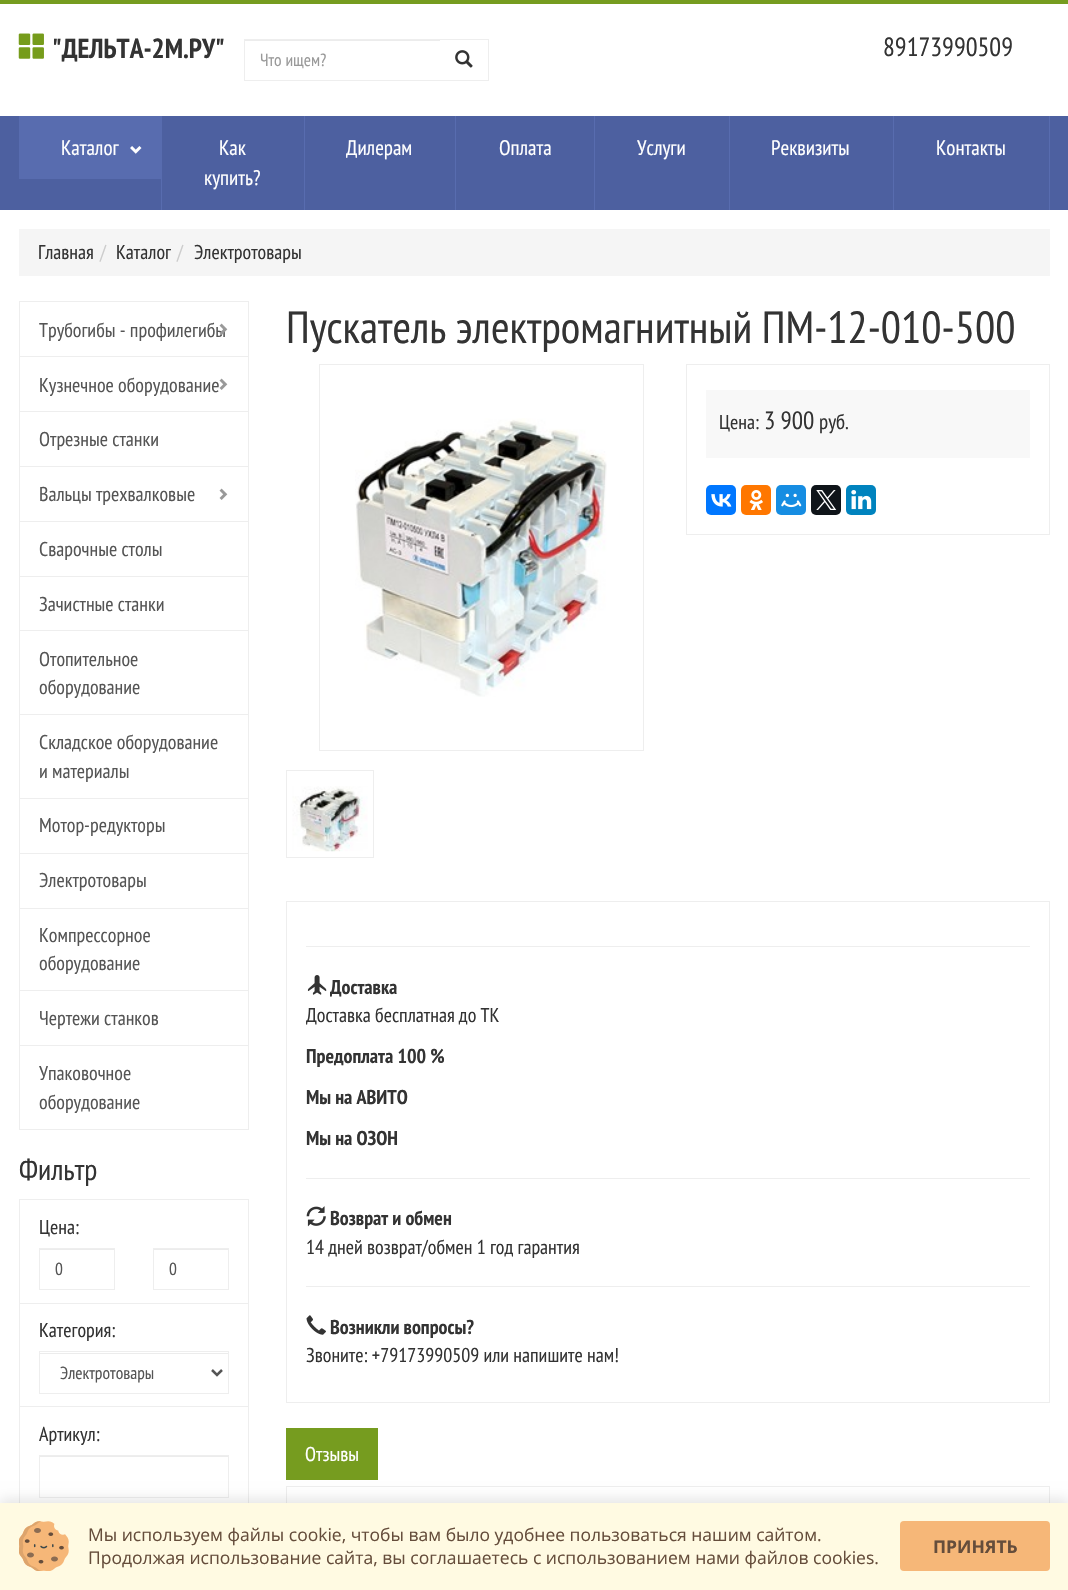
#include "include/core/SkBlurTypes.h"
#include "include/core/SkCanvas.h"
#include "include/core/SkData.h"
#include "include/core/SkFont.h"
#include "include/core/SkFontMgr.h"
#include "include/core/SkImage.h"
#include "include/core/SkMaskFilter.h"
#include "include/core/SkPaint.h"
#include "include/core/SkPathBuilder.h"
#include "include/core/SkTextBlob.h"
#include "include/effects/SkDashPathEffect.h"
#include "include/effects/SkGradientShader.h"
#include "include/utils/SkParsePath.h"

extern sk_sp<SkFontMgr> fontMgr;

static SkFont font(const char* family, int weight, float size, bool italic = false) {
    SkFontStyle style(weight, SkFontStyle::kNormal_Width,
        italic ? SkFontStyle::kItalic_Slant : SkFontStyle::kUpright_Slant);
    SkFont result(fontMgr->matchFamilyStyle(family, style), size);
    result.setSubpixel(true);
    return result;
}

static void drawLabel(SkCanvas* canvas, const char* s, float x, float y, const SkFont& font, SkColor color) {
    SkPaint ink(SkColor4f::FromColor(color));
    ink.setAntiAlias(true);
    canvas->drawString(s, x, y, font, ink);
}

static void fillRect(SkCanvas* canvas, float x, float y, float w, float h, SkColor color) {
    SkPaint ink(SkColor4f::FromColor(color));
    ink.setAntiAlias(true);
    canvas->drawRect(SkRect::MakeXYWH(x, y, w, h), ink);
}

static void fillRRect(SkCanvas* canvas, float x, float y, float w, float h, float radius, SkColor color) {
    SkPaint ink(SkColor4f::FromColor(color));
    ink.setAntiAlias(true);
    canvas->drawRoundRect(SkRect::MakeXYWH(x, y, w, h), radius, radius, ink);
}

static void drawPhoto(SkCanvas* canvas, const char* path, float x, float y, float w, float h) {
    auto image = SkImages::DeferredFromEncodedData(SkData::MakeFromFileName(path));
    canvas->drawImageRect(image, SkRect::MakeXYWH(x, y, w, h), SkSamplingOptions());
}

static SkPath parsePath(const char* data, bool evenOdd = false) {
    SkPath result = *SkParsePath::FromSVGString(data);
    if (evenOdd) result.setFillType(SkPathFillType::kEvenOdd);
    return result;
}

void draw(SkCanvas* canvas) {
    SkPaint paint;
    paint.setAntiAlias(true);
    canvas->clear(0xFFFFFFFF);
    fillRect(canvas, 0, 0, 1068, 4, 0xFF769C1F);
    drawPhoto(canvas, "assets/img1.png", 18, 33, 26, 26);
    SkFont font1 = font("PT Sans Narrow", 700, 27.5f);
    drawLabel(canvas, "\"ДЕЛЬТА-2М.РУ\"", 52, 58, font1, 0xFF333333);
    fillRect(canvas, 245, 40, 195, 1, 0xFFECECEC);
    paint.setStroke(true);
    paint.setStrokeWidth(1);
    paint.setColor(0xFFEEEEEE);
    canvas->drawRect(SkRect::MakeXYWH(244.5f, 39.5f, 196, 41), paint);
    SkFont font2 = font("PT Sans Narrow", 400, 17.5f);
    drawLabel(canvas, "Что ищем?", 260, 66, font2, 0xFF999999);
    fillRect(canvas, 440, 40, 1, 40, 0xFFFFFFFF);
    fillRect(canvas, 440, 39, 49, 1, 0xFFEEEEEE);
    fillRect(canvas, 488, 39, 1, 42, 0xFFEEEEEE);
    fillRect(canvas, 440, 80, 49, 1, 0xFFEEEEEE);
    drawPhoto(canvas, "assets/img2.png", 455, 50, 18, 18);
    SkFont font3 = font("PT Sans Narrow", 400, 26.25f);
    drawLabel(canvas, "89173990509", 883, 56, font3, 0xFF333333);
    fillRect(canvas, 0, 116, 1068, 94, 0xFF4D60A0);
    fillRect(canvas, 161, 116, 1, 94, 0xFF586CAF);
    fillRect(canvas, 19, 116, 142, 63, 0xFF586CAF);
    SkFont font4 = font("PT Sans Narrow", 400, 21);
    drawLabel(canvas, "Каталог", 61, 155, font4, 0xFFFFFFFF);
    drawPhoto(canvas, "assets/img3.png", 130, 146, 12, 8);
    fillRect(canvas, 304, 116, 1, 94, 0xFF586CAF);
    drawLabel(canvas, "Как", 219, 155, font4, 0xFFFFFFFF);
    drawLabel(canvas, "купить?", 204, 185, font4, 0xFFFFFFFF);
    fillRect(canvas, 455, 116, 1, 94, 0xFF586CAF);
    drawLabel(canvas, "Дилерам", 346, 155, font4, 0xFFFFFFFF);
    fillRect(canvas, 594, 116, 1, 94, 0xFF586CAF);
    drawLabel(canvas, "Оплата", 499, 155, font4, 0xFFFFFFFF);
    fillRect(canvas, 729, 116, 1, 94, 0xFF586CAF);
    drawLabel(canvas, "Услуги", 637, 155, font4, 0xFFFFFFFF);
    fillRect(canvas, 893, 116, 1, 94, 0xFF586CAF);
    drawLabel(canvas, "Реквизиты", 771, 155, font4, 0xFFFFFFFF);
    fillRect(canvas, 1049, 116, 1, 94, 0xFF586CAF);
    drawLabel(canvas, "Контакты", 936, 155, font4, 0xFFFFFFFF);
    fillRect(canvas, 19, 229, 1031, 47, 0xFFF5F5F5);
    SkFont font5 = font("PT Sans Narrow", 400, 20);
    drawLabel(canvas, "Главная", 38, 259, font5, 0xFF333333);
    drawLabel(canvas, "/", 100, 259, font5, 0xFFCCCCCC);
    drawLabel(canvas, "Каталог", 116, 259, font5, 0xFF333333);
    drawLabel(canvas, "/", 177, 259, font5, 0xFFCCCCCC);
    drawLabel(canvas, "Электротовары", 194, 259, font5, 0xFF333333);
    canvas->drawRect(SkRect::MakeXYWH(19.5f, 301.5f, 229, 56), paint);
    drawLabel(canvas, "Трубогибы - профилегибы", 39, 337, font5, 0xFF555555);
    drawPhoto(canvas, "assets/img4.png", 219, 323, 9, 12);
    fillRect(canvas, 20, 357, 228, 1, 0xFFFFFFFF);
    canvas->drawRect(SkRect::MakeXYWH(19.5f, 356.5f, 229, 56), paint);
    drawLabel(canvas, "Кузнечное оборудование", 39, 392, font5, 0xFF555555);
    drawPhoto(canvas, "assets/img5.png", 219, 378, 9, 12);
    fillRect(canvas, 20, 412, 228, 1, 0xFFFFFFFF);
    canvas->drawRect(SkRect::MakeXYWH(19.5f, 411.5f, 229, 56), paint);
    drawLabel(canvas, "Отрезные станки", 39, 446, font5, 0xFF555555);
    fillRect(canvas, 20, 467, 228, 1, 0xFFFFFFFF);
    canvas->drawRect(SkRect::MakeXYWH(19.5f, 466.5f, 229, 56), paint);
    drawLabel(canvas, "Вальцы трехвалковые", 39, 501, font5, 0xFF555555);
    drawPhoto(canvas, "assets/img5.png", 219, 488, 9, 12);
    fillRect(canvas, 20, 522, 228, 1, 0xFFFFFFFF);
    canvas->drawRect(SkRect::MakeXYWH(19.5f, 521.5f, 229, 56), paint);
    drawLabel(canvas, "Сварочные столы", 39, 556, font5, 0xFF555555);
    fillRect(canvas, 20, 577, 228, 1, 0xFFFFFFFF);
    canvas->drawRect(SkRect::MakeXYWH(19.5f, 576.5f, 229, 54), paint);
    drawLabel(canvas, "Зачистные станки", 39, 611, font5, 0xFF555555);
    canvas->drawRect(SkRect::MakeXYWH(19.5f, 630.5f, 229, 84), paint);
    drawLabel(canvas, "Отопительное", 39, 666, font5, 0xFF555555);
    drawLabel(canvas, "оборудование", 39, 694, font5, 0xFF555555);
    canvas->drawRect(SkRect::MakeXYWH(19.5f, 714.5f, 229, 84), paint);
    drawLabel(canvas, "Складское оборудование", 39, 749, font5, 0xFF555555);
    drawLabel(canvas, "и материалы", 39, 778, font5, 0xFF555555);
    canvas->drawRect(SkRect::MakeXYWH(19.5f, 798.5f, 229, 55), paint);
    drawLabel(canvas, "Мотор-редукторы", 39, 832, font5, 0xFF555555);
    canvas->drawRect(SkRect::MakeXYWH(19.5f, 853.5f, 229, 55), paint);
    drawLabel(canvas, "Электротовары", 39, 887, font5, 0xFF555555);
    canvas->drawRect(SkRect::MakeXYWH(19.5f, 908.5f, 229, 82), paint);
    drawLabel(canvas, "Компрессорное", 39, 942, font5, 0xFF555555);
    drawLabel(canvas, "оборудование", 39, 970, font5, 0xFF555555);
    canvas->drawRect(SkRect::MakeXYWH(19.5f, 990.5f, 229, 55), paint);
    drawLabel(canvas, "Чертежи станков", 39, 1025, font5, 0xFF555555);
    canvas->drawRect(SkRect::MakeXYWH(19.5f, 1045.5f, 229, 84), paint);
    drawLabel(canvas, "Упаковочное", 39, 1080, font5, 0xFF555555);
    drawLabel(canvas, "оборудование", 39, 1109, font5, 0xFF555555);
    SkFont font6 = font("PT Sans Narrow", 400, 30);
    drawLabel(canvas, "Фильтр", 19, 1180, font6, 0xFF333333);
    canvas->drawRect(SkRect::MakeXYWH(19.5f, 1199.5f, 229, 104), paint);
    drawLabel(canvas, "Цена:", 39, 1234, font5, 0xFF333333);
    fillRect(canvas, 40, 1249, 74, 1, 0xFFECECEC);
    canvas->drawRect(SkRect::MakeXYWH(39.5f, 1248.5f, 75, 41), paint);
    drawLabel(canvas, "0", 55, 1275, font2, 0xFF555555);
    fillRect(canvas, 154, 1249, 74, 1, 0xFFECECEC);
    canvas->drawRect(SkRect::MakeXYWH(153.5f, 1248.5f, 75, 41), paint);
    drawLabel(canvas, "0", 169, 1275, font2, 0xFF555555);
    canvas->drawRect(SkRect::MakeXYWH(19.5f, 1303.5f, 229, 104), paint);
    drawLabel(canvas, "Категория:", 39, 1337, font5, 0xFF333333);
    fillRect(canvas, 40, 1353, 188, 1, 0xFFECECEC);
    canvas->drawRect(SkRect::MakeXYWH(39.5f, 1351.5f, 189, 42), paint);
    paint.setStrokeWidth(2.5f);
    paint.setColor(0xFF555555);
    canvas->drawPath(parsePath("M212 1370L217 1375L222 1370"), paint);
    drawLabel(canvas, "Электротовары", 60, 1379, font2, 0xFF555555);
    fillRect(canvas, 20, 1407, 228, 1, 0xFFFFFFFF);
    paint.setStrokeWidth(1);
    paint.setColor(0xFFEEEEEE);
    canvas->drawRect(SkRect::MakeXYWH(19.5f, 1406.5f, 229, 104), paint);
    drawLabel(canvas, "Артикул:", 39, 1441, font5, 0xFF333333);
    fillRect(canvas, 40, 1456, 188, 1, 0xFFECECEC);
    canvas->drawRect(SkRect::MakeXYWH(39.5f, 1455.5f, 189, 42), paint);
    SkFont font7 = font("PT Sans Narrow", 400, 45);
    drawLabel(canvas, "Пускатель электромагнитный ПМ-12-010-500", 286, 343, font7, 0xFF333333);
    canvas->drawRect(SkRect::MakeXYWH(319.5f, 364.5f, 324, 386), paint);
    drawPhoto(canvas, "assets/img6.png", 355, 418, 252, 279);
    canvas->drawRect(SkRect::MakeXYWH(286.5f, 770.5f, 87, 87), paint);
    drawPhoto(canvas, "assets/img7.png", 292, 786, 76, 66);
    canvas->drawRect(SkRect::MakeXYWH(686.5f, 364.5f, 363, 170), paint);
    fillRect(canvas, 706, 390, 324, 68, 0xFFF8F8F8);
    drawLabel(canvas, "Цена:", 719, 429, font5, 0xFF333333);
    SkFont font8 = font("PT Sans Narrow", 400, 25);
    drawLabel(canvas, "3 900", 764, 429, font8, 0xFF333333);
    drawLabel(canvas, "руб.", 819, 429, font4, 0xFF333333);
    fillRRect(canvas, 706, 485, 30, 30, 5, 0xFF0077FF);
    drawPhoto(canvas, "assets/img8.png", 711, 494, 21, 13);
    fillRRect(canvas, 741, 485, 30, 30, 5, 0xFFFF7700);
    drawPhoto(canvas, "assets/img9.png", 749, 490, 14, 20);
    fillRRect(canvas, 776, 485, 30, 30, 5, 0xFF168DE2);
    drawPhoto(canvas, "assets/img10.png", 781, 493, 21, 15);
    fillRRect(canvas, 811, 485, 30, 30, 5, 0xFF0F1419);
    drawPhoto(canvas, "assets/img11.png", 816, 490, 21, 20);
    fillRRect(canvas, 846, 485, 30, 30, 5, 0xFF0083BE);
    drawPhoto(canvas, "assets/img12.png", 851, 490, 21, 20);
    canvas->drawRect(SkRect::MakeXYWH(286.5f, 901.5f, 763, 501), paint);
    fillRect(canvas, 306, 946, 724, 1, 0xFFEEEEEE);
    drawPhoto(canvas, "assets/img13.png", 307, 975, 20, 20);
    SkFont font9 = font("PT Sans Narrow", 700, 20);
    drawLabel(canvas, "Доставка", 330, 994, font9, 0xFF333333);
    drawLabel(canvas, "Доставка бесплатная до ТК", 306, 1022, font5, 0xFF333333);
    drawLabel(canvas, "Предоплата 100 %", 306, 1063, font9, 0xFF333333);
    drawLabel(canvas, "Мы на АВИТО", 306, 1104, font9, 0xFF333333);
    drawLabel(canvas, "Мы на ОЗОН", 306, 1145, font9, 0xFF333333);
    fillRect(canvas, 306, 1178, 724, 1, 0xFFEEEEEE);
    drawPhoto(canvas, "assets/img14.png", 306, 1206, 20, 21);
    drawLabel(canvas, "Возврат и обмен", 330, 1225, font9, 0xFF333333);
    drawLabel(canvas, "14 дней возврат/обмен 1 год гарантия", 306, 1254, font5, 0xFF333333);
    fillRect(canvas, 306, 1286, 724, 1, 0xFFEEEEEE);
    drawPhoto(canvas, "assets/img15.png", 306, 1315, 20, 20);
    drawLabel(canvas, "Возникли вопросы?", 330, 1334, font9, 0xFF333333);
    drawLabel(canvas, "Звоните: +79173990509 или напишите нам!", 306, 1362, font5, 0xFF333333);
    fillRect(canvas, 286, 1428, 92, 52, 0xFF769C1F);
    drawLabel(canvas, "Отзывы", 305, 1461, font5, 0xFFFFFFFF);
    canvas->drawRect(SkRect::MakeXYWH(286.5f, 1486.5f, 763, 39), paint);
    paint.setStroke(false);
    paint.setColor(0x1A000000);
    paint.setMaskFilter(SkMaskFilter::MakeBlur(kNormal_SkBlurStyle, 6));
    canvas->drawRect(SkRect::MakeXYWH(0, 1499, 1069, 87), paint);
    paint.setMaskFilter(nullptr);
    fillRect(canvas, 0, 1503, 1068, 87, 0xFFFFFAE2);
    drawPhoto(canvas, "assets/img16.png", 19, 1521, 50, 50);
    SkFont font10 = font("Open Sans", 400, 17.5f);
    drawLabel(canvas, "Мы используем файлы cookie, чтобы вам было удобнее пользоваться нашим сайтом.", 88, 1541, font10, 0xFF654D3B);
    drawLabel(canvas, "Продолжая использование сайта, вы соглашаетесь c использованием нами файлов cookies.", 88, 1564, font10, 0xFF654D3B);
    fillRRect(canvas, 900, 1521, 150, 50, 4, 0xFFF6B778);
    SkFont font11 = font("Open Sans", 700, 17.5f);
    drawLabel(canvas, "ПРИНЯТЬ", 933, 1553, font11, 0xFF654D3B);
}
